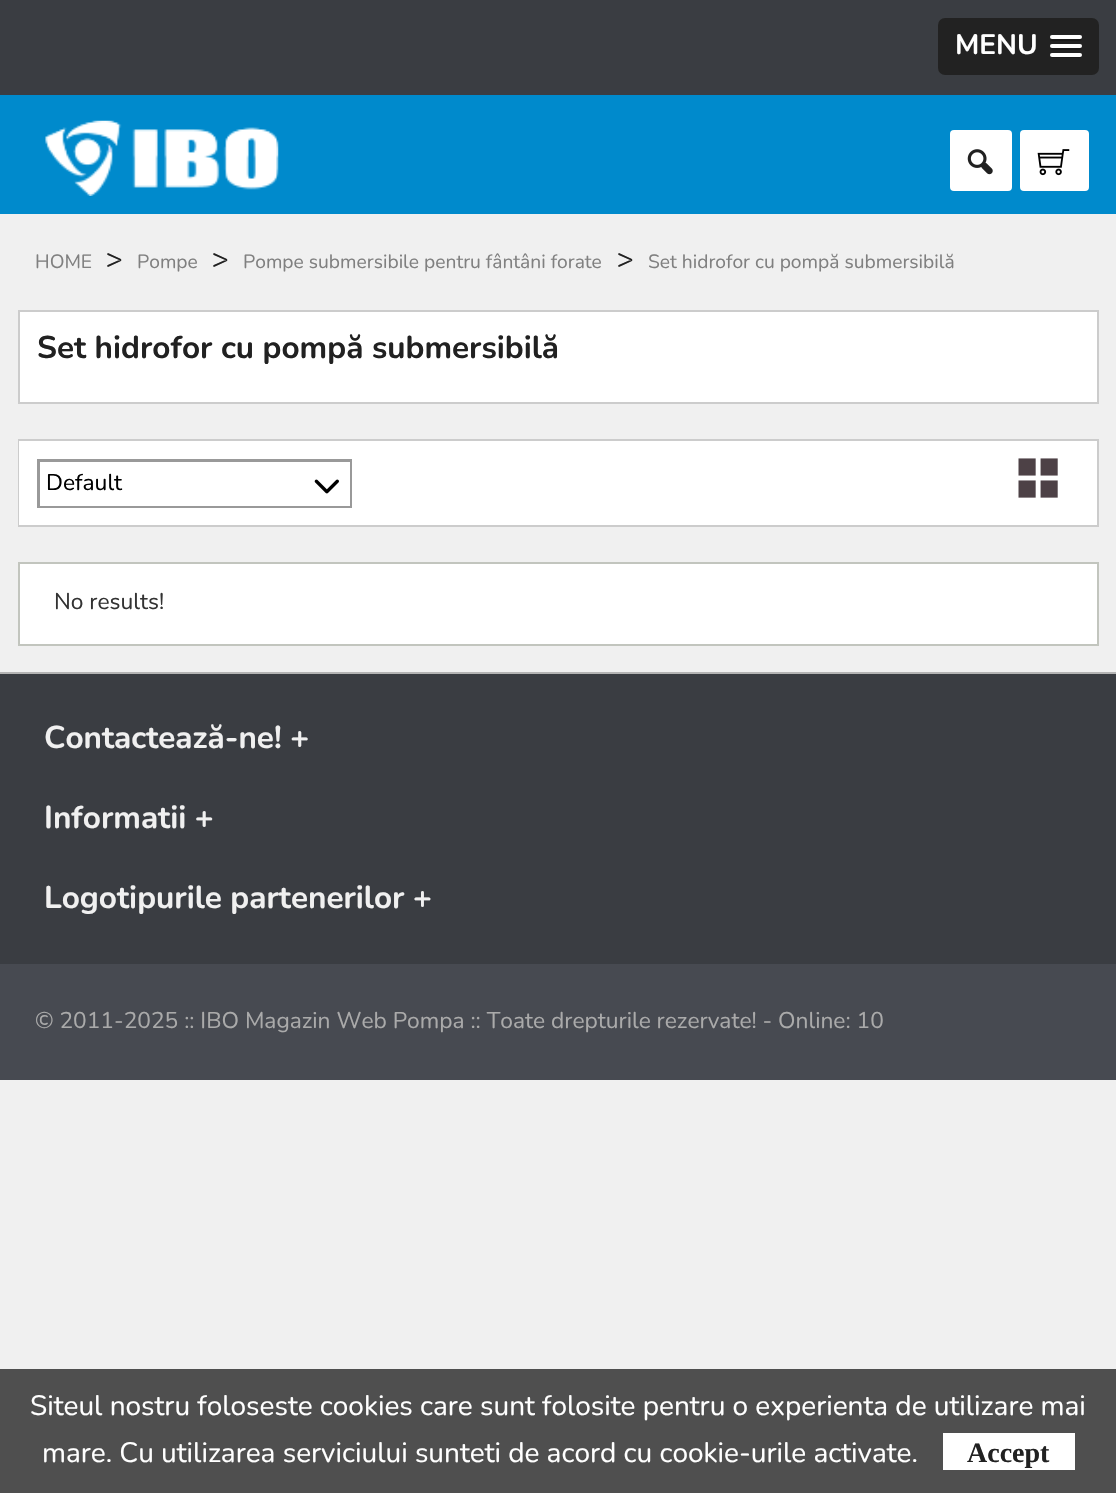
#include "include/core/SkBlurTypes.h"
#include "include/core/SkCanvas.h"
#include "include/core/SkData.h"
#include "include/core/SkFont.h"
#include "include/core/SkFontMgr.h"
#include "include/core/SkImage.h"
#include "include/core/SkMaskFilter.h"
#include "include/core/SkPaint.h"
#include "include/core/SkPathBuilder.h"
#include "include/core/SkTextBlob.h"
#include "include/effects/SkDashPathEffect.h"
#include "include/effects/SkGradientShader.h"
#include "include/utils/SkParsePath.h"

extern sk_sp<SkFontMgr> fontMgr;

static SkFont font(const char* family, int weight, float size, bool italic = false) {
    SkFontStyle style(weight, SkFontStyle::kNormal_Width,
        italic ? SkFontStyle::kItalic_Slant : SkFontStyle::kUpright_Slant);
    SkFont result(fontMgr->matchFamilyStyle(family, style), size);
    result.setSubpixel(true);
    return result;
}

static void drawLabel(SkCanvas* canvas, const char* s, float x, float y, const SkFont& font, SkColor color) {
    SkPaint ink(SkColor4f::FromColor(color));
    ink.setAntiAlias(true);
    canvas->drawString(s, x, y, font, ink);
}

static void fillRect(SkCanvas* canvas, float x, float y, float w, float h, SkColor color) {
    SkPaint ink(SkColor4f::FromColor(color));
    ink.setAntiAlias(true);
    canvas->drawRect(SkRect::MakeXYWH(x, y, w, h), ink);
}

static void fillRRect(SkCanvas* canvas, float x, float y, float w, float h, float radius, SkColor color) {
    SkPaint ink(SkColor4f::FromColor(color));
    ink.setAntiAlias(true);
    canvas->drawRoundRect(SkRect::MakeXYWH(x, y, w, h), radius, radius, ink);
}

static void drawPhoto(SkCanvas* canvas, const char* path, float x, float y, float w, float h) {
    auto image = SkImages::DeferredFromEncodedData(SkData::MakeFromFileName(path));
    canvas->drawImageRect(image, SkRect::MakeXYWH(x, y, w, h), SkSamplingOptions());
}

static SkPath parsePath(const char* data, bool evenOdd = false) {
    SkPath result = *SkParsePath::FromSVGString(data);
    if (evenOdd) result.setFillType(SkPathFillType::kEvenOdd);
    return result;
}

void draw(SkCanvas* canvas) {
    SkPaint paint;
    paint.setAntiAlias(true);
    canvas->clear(0xFFF0F0F0);
    fillRect(canvas, 0, 0, 1116, 95, 0xFF3A3D42);
    fillRRect(canvas, 938, 18, 161, 57, 7, 0xFF222222);
    SkFont font1 = font("Nunito", 700, 28);
    drawLabel(canvas, "MENU", 955, 54, font1, 0xFFFFFFFF);
    paint.setColor(0xFF1A1A1A);
    canvas->drawPath(parsePath("M1050.5 38L1050 39.5C1050.5 42 1055.5 41 1056.5 41H1075.5C1077 41 1082 42 1082 39L1081.5 37.5C1081 38 1080.5 38.5 1080 38.5H1051.5Z"), paint);
    fillRRect(canvas, 1050, 35, 32, 4, 2, 0xFFFFFFFF);
    canvas->drawPath(parsePath("M1050.5 46.5C1050 47 1050 48 1050 48.5C1050.5 51 1055.5 50 1056.5 50H1080C1082 50 1082.5 47.5 1081 46.5L1080 47H1051.5Z"), paint);
    fillRRect(canvas, 1050, 44, 32, 4, 2, 0xFFFFFFFF);
    canvas->drawPath(parsePath("M1050 55C1048.5 59 1056 58 1056.5 58H1075.5C1076.5 58 1081.5 59 1082 56.5C1082 56 1082 55 1081.5 54.5C1081.5 55.5 1080.5 56 1080 56H1052C1051 56 1050.5 55.5 1050 55Z"), paint);
    fillRRect(canvas, 1050, 53, 32, 4, 2, 0xFFFFFFFF);
    fillRect(canvas, 0, 95, 1116, 119, 0xFF008ACC);
    drawPhoto(canvas, "assets/img1.png", 45, 120, 234, 76);
    fillRRect(canvas, 950, 130, 62, 61, 4, 0xFFFFFFFF);
    drawPhoto(canvas, "assets/img2.png", 967, 149, 26, 26);
    fillRRect(canvas, 1020, 130, 69, 61, 4, 0xFFFFFFFF);
    drawPhoto(canvas, "assets/img3.png", 1037, 149, 33, 27);
    SkFont font2 = font("Nunito", 400, 19.25f);
    drawLabel(canvas, "HOME", 35, 268, font2, 0xFF808080);
    SkFont font3 = font("Nunito", 400, 28);
    drawLabel(canvas, ">", 106, 268, font3, 0xFF212121);
    drawLabel(canvas, "Pompe", 137, 268, font2, 0xFF808080);
    drawLabel(canvas, ">", 212, 268, font3, 0xFF212121);
    drawLabel(canvas, "Pompe submersibile pentru fântâni forate", 243, 268, font2, 0xFF808080);
    drawLabel(canvas, ">", 617, 268, font3, 0xFF212121);
    drawLabel(canvas, "Set hidrofor cu pompă submersibilă", 648, 268, font2, 0xFF808080);
    paint.setColor(0xFFFFFFFF);
    canvas->drawRect(SkRect::MakeXYWH(19, 311, 1079, 92), paint);
    paint.setStroke(true);
    paint.setStrokeWidth(2);
    paint.setColor(0xFFCCCCCC);
    canvas->drawRect(SkRect::MakeXYWH(19, 311, 1079, 92), paint);
    SkFont font4 = font("Nunito", 700, 31.5f);
    drawLabel(canvas, "Set hidrofor cu pompă submersibilă", 37, 358, font4, 0xFF212121);
    canvas->drawRect(SkRect::MakeXYWH(19, 440, 1079, 86), paint);
    fillRect(canvas, 19, 441, 1078, 84, 0xFFFFFFFF);
    canvas->save();
    canvas->clipRect(SkRect::MakeXYWH(39, 460, 311, 46));
    paint.setStroke(false);
    paint.setColor(0xFF999999);
    canvas->drawPath(parsePath("M-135 287H523V679H-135ZM40 462H352V508H40Z", true), paint);
    canvas->restore();
    paint.setStroke(true);
    canvas->drawRect(SkRect::MakeXYWH(38, 460, 313, 47), paint);
    SkFont font5 = font("Nunito", 400, 22.75f);
    drawLabel(canvas, "Default", 46, 490, font5, 0xFF000000);
    drawPhoto(canvas, "assets/img4.png", 314, 479, 25, 15);
    drawPhoto(canvas, "assets/img5.png", 1018, 458, 40, 40);
    paint.setStroke(false);
    paint.setColor(0xFFFFFFFF);
    canvas->drawRect(SkRect::MakeXYWH(19, 563, 1079, 82), paint);
    paint.setStroke(true);
    paint.setColor(0xFFC2C5BE);
    canvas->drawRect(SkRect::MakeXYWH(19, 563, 1079, 82), paint);
    drawLabel(canvas, "No results!", 54, 609, font5, 0xFF333333);
    fillRect(canvas, 0, 674, 1116, 290, 0xFF3A3D42);
    fillRect(canvas, 0, 672, 1116, 2, 0xFFB4B4B4);
    drawLabel(canvas, "Contactează-ne! +", 44, 748, font4, 0xFFF0F0F0);
    drawLabel(canvas, "Informatii +", 44, 828, font4, 0xFFF0F0F0);
    drawLabel(canvas, "Logotipurile partenerilor +", 44, 908, font4, 0xFFF0F0F0);
    fillRect(canvas, 0, 964, 1116, 116, 0xFF474A51);
    drawLabel(canvas, "© 2011-2025 :: IBO Magazin Web Pompa :: Toate drepturile rezervate! - Online: 10", 35, 1028, font5, 0xFFAAAAAA);
    fillRect(canvas, 0, 1369, 1116, 124, 0xFF4F4F4F);
    drawLabel(canvas, "Siteul nostru foloseste cookies care sunt folosite pentru o experienta de utilizare mai", 30, 1415, font3, 0xFFFFFFFF);
    drawLabel(canvas, "mare. Cu utilizarea serviciului sunteti de acord cu cookie-urile activate.", 42, 1462, font3, 0xFFFFFFFF);
    fillRect(canvas, 943, 1433, 132, 37, 0xFFFFFFFF);
    SkFont font6 = font("Liberation Serif", 700, 28);
    drawLabel(canvas, "Accept", 967, 1462, font6, 0xFF212121);
}
